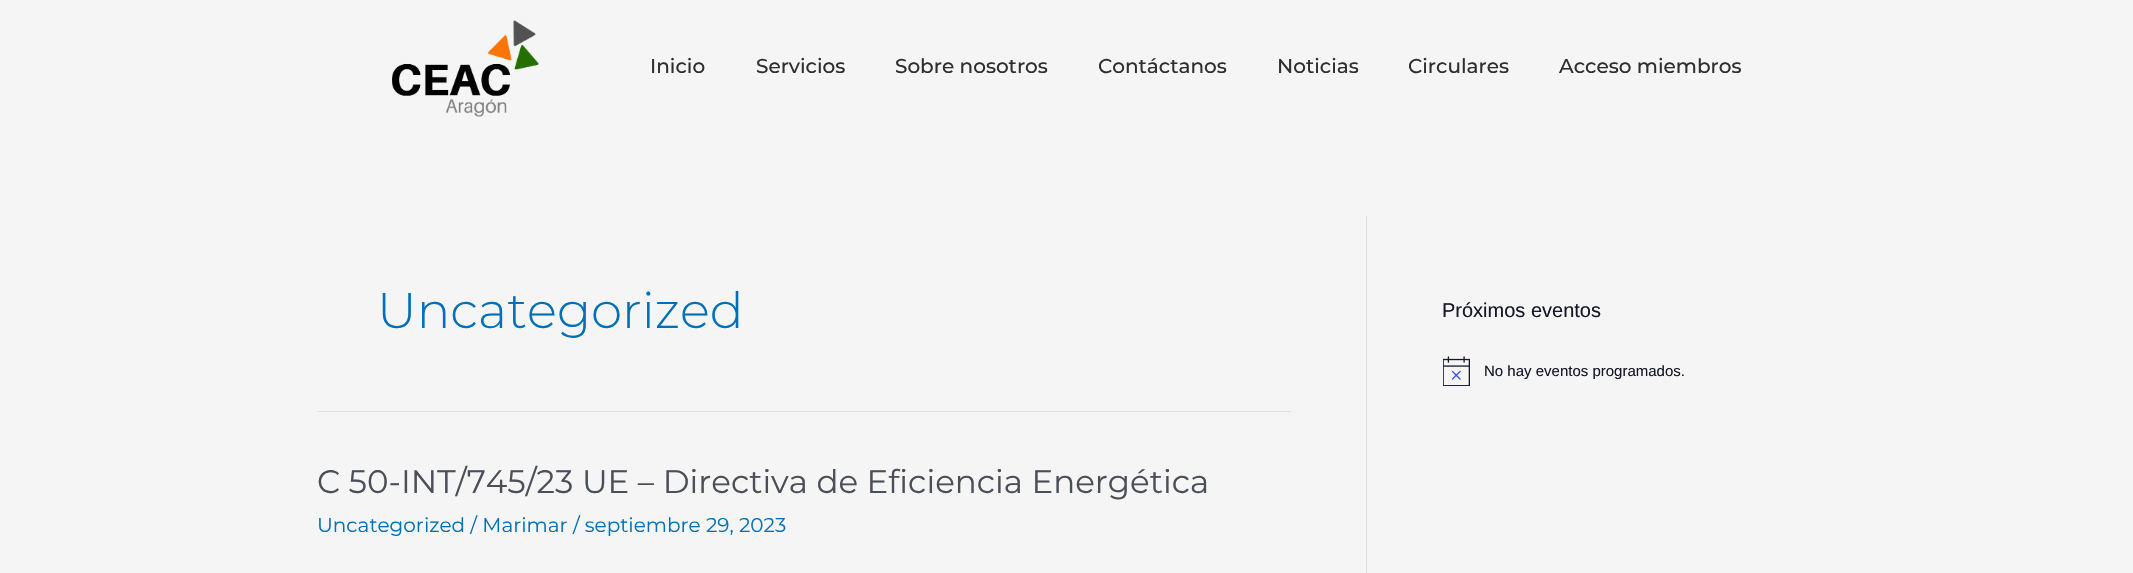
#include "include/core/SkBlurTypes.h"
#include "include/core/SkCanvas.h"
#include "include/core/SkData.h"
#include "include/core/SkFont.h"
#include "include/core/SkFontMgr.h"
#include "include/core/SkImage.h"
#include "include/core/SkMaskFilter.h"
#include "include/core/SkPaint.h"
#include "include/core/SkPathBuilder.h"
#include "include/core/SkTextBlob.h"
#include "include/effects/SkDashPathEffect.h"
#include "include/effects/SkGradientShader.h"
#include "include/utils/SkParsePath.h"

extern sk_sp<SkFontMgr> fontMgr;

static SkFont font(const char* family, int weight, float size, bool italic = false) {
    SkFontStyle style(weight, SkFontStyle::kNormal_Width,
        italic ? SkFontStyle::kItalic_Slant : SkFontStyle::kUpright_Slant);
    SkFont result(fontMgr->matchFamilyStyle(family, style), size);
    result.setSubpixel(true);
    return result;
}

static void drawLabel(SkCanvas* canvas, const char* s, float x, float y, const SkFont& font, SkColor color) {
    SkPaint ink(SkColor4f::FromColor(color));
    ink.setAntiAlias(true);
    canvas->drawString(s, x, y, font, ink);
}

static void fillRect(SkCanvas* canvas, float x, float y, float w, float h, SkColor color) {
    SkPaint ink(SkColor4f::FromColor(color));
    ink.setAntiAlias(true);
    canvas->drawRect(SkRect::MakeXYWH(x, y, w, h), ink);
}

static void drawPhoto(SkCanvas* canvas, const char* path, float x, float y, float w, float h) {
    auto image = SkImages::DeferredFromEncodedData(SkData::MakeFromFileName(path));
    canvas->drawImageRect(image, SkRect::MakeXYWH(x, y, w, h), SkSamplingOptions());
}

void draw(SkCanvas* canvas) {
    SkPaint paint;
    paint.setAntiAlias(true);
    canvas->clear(0xFFF5F5F5);
    drawPhoto(canvas, "assets/img1.png", 392, 20, 147, 97);
    SkFont font1 = font("Montserrat", 500, 20);
    drawLabel(canvas, "Inicio", 650, 73, font1, 0xFF2F2F2F);
    drawLabel(canvas, "Servicios", 756, 73, font1, 0xFF2F2F2F);
    drawLabel(canvas, "Sobre nosotros", 895, 73, font1, 0xFF2F2F2F);
    drawLabel(canvas, "Contáctanos", 1098, 73, font1, 0xFF2F2F2F);
    drawLabel(canvas, "Noticias", 1277, 73, font1, 0xFF2F2F2F);
    drawLabel(canvas, "Circulares", 1408, 73, font1, 0xFF2F2F2F);
    drawLabel(canvas, "Acceso miembros", 1559, 73, font1, 0xFF2F2F2F);
    fillRect(canvas, 1366, 216, 1, 357, 0xFFDDDDDD);
    fillRect(canvas, 318, 411, 973, 1, 0xFFDDDDDD);
    SkFont font2 = font("Montserrat", 300, 50);
    drawLabel(canvas, "Uncategorized", 377, 328, font2, 0xFF0170B9);
    SkFont font3 = font("Montserrat", 400, 32.5f);
    drawLabel(canvas, "C 50-INT/745/23 UE – Directiva de Eficiencia Energética", 317, 493, font3, 0xFF4B4F58);
    SkFont font4 = font("Montserrat", 400, 20);
    drawLabel(canvas, "Uncategorized / Marimar / septiembre 29, 2023", 317, 532, font4, 0xFF0170B9);
    SkFont font5 = font("Liberation Sans", 400, 20);
    drawLabel(canvas, "Próximos eventos", 1442, 317, font5, 0xFF141827);
    drawPhoto(canvas, "assets/img2.png", 1443, 356, 27, 30);
    SkFont font6 = font("Liberation Sans", 400, 15);
    drawLabel(canvas, "No hay eventos programados.", 1484, 376, font6, 0xFF141827);
}
